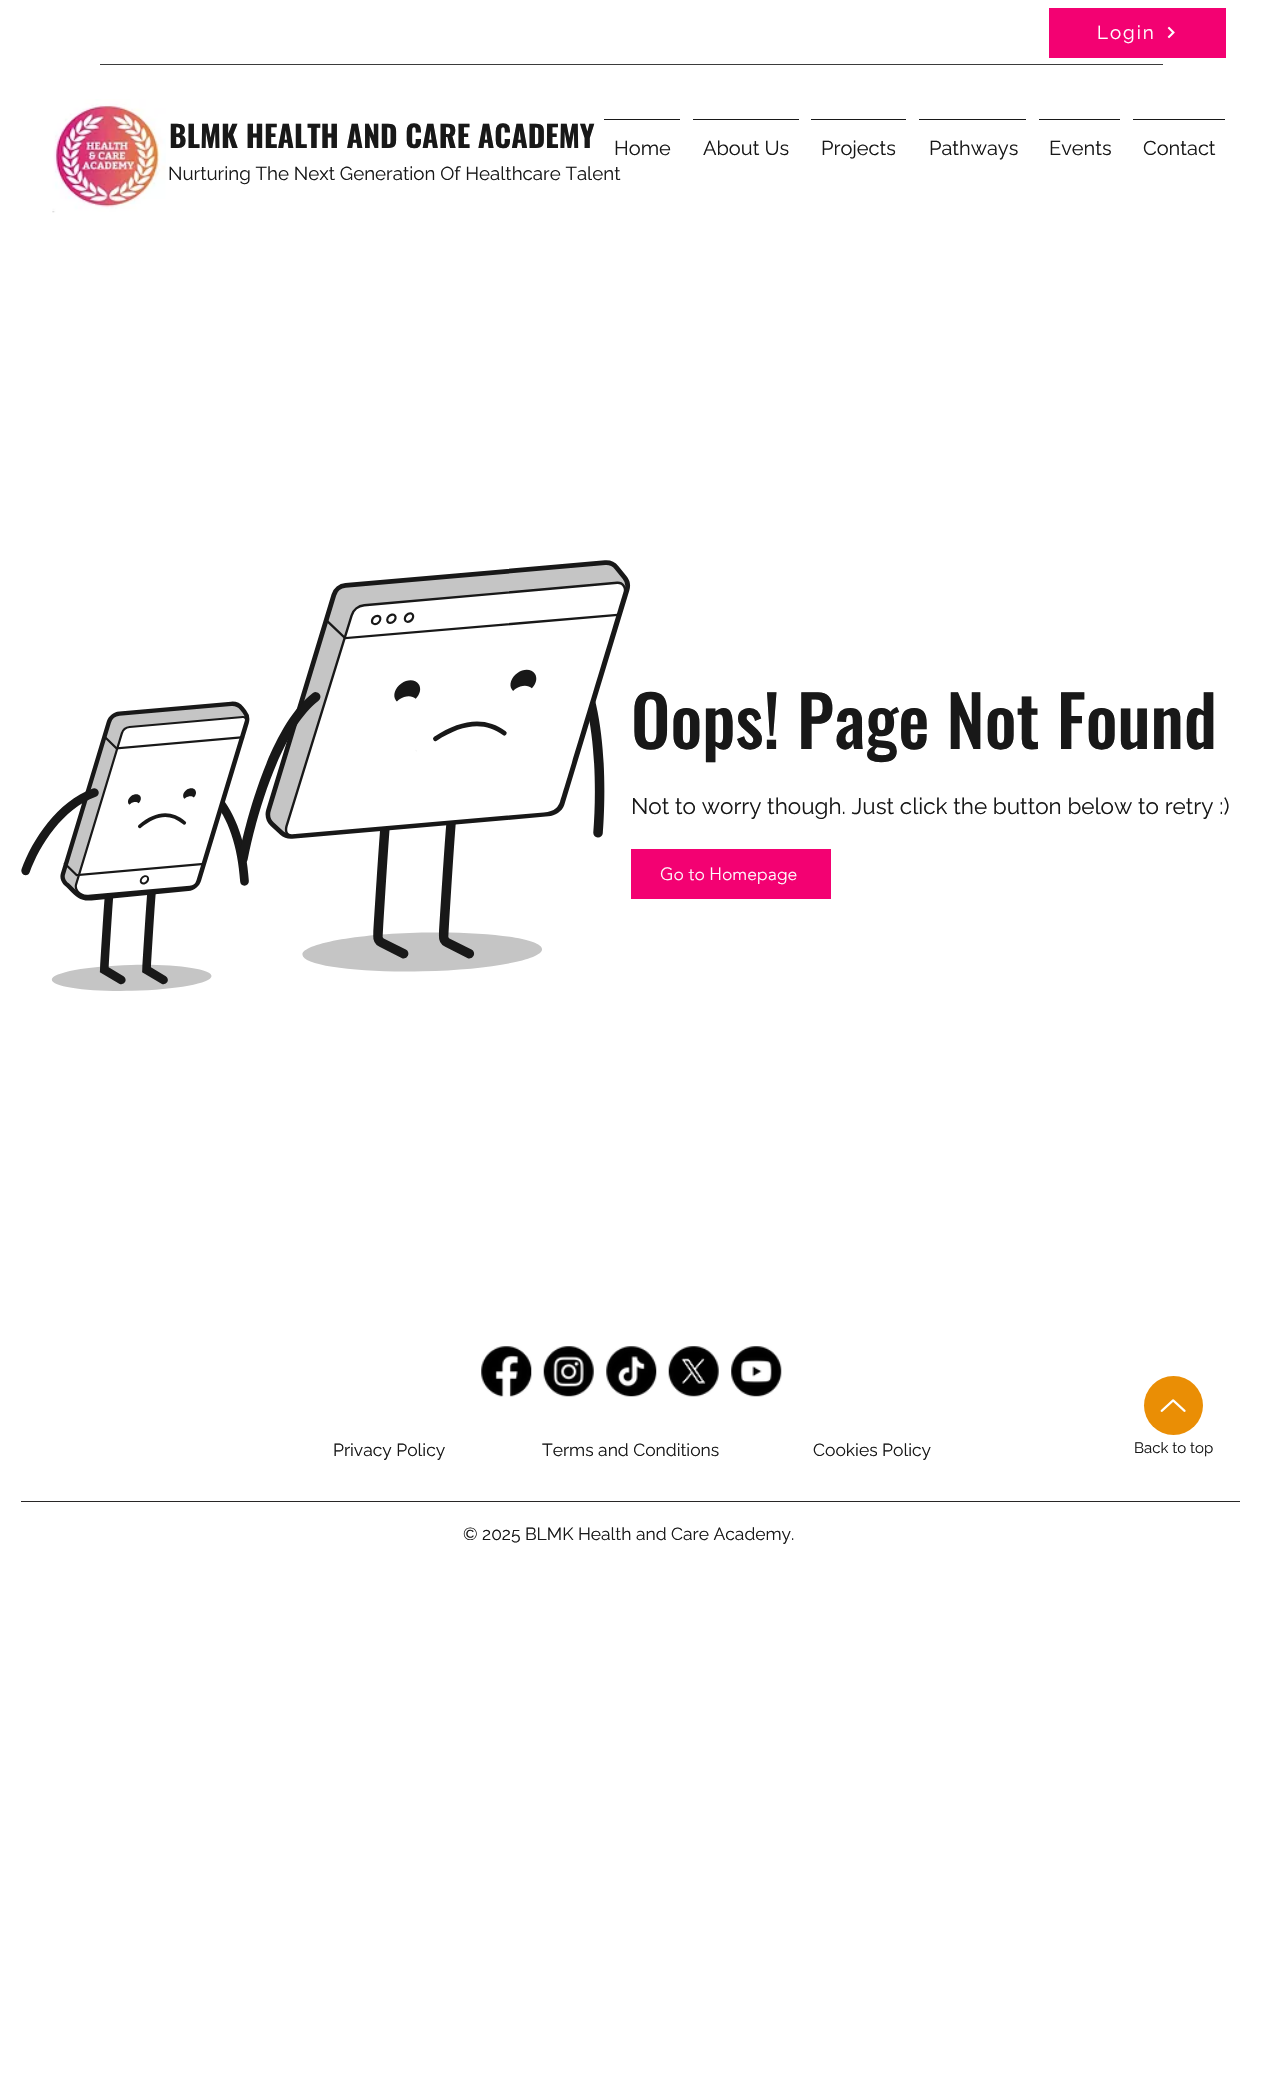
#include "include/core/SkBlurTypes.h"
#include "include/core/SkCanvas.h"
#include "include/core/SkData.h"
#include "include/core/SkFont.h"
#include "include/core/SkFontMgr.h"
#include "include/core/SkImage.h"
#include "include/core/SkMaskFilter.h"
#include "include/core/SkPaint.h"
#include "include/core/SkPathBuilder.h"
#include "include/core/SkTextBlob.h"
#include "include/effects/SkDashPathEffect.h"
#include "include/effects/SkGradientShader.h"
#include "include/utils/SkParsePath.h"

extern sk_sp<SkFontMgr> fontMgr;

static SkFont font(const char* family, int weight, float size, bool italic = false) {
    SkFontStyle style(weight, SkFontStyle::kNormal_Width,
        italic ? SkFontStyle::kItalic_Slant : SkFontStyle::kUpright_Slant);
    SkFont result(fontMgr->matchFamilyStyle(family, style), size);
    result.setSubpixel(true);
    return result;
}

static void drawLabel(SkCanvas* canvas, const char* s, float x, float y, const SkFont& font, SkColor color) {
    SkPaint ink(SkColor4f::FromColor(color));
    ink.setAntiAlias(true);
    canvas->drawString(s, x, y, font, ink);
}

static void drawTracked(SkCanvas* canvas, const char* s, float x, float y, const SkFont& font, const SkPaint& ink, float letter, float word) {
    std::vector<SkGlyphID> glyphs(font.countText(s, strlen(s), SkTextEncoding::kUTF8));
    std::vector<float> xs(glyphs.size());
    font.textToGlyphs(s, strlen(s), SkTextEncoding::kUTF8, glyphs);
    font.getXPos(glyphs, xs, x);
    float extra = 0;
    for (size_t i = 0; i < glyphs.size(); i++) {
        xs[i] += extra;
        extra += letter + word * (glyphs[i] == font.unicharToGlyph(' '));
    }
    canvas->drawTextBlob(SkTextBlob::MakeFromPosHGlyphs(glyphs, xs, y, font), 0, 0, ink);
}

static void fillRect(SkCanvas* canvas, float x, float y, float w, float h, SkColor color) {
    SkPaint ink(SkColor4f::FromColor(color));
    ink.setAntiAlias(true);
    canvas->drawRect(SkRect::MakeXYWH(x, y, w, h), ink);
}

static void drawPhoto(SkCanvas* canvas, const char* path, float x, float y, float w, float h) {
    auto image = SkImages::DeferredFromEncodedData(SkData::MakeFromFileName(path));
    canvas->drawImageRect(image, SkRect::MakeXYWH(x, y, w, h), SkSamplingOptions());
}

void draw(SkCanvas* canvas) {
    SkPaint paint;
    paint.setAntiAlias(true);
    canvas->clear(0xFFFFFFFF);
    fillRect(canvas, 1049, 8, 177, 50, 0xFFF30172);
    SkFont font1 = font("Raleway", 400, 18.75f);
    paint.setColor(0xFFFFFFFF);
    drawTracked(canvas, "Login", 1097, 39, font1, paint, 2, 0);
    drawPhoto(canvas, "assets/img1.png", 1167, 26, 8, 13);
    fillRect(canvas, 100, 64, 1063, 1, 0xFF3B3B3B);
    drawPhoto(canvas, "assets/img2.png", 52, 99, 114, 114);
    SkFont font2 = font("Oswald", 700, 30);
    drawLabel(canvas, "BLMK HEALTH AND CARE ACADEMY", 169, 148, font2, 0xFF181818);
    drawLabel(canvas, "Nurturing The Next Generation Of Healthcare Talent", 168, 180, font1, 0xFF181818);
    fillRect(canvas, 604, 119, 76, 1, 0xFF181818);
    SkFont font3 = font("Raleway", 400, 20);
    drawLabel(canvas, "Home", 614, 155, font3, 0xFF181818);
    fillRect(canvas, 693, 119, 106, 1, 0xFF181818);
    drawLabel(canvas, "About Us", 703, 155, font3, 0xFF181818);
    fillRect(canvas, 811, 119, 95, 1, 0xFF181818);
    drawLabel(canvas, "Projects", 821, 155, font3, 0xFF181818);
    fillRect(canvas, 919, 119, 107, 1, 0xFF181818);
    drawLabel(canvas, "Pathways", 929, 155, font3, 0xFF181818);
    fillRect(canvas, 1039, 119, 81, 1, 0xFF181818);
    drawLabel(canvas, "Events", 1049, 155, font3, 0xFF181818);
    fillRect(canvas, 1133, 119, 92, 1, 0xFF181818);
    drawLabel(canvas, "Contact", 1143, 155, font3, 0xFF181818);
    drawPhoto(canvas, "assets/img3.png", 21, 560, 610, 431);
    SkFont font4 = font("Oswald", 500, 70);
    drawLabel(canvas, "Oops! Page Not Found", 631, 749, font4, 0xFF181818);
    SkFont font5 = font("Raleway", 400, 22.5f);
    drawLabel(canvas, "Not to worry though. Just click the button below to retry :)", 631, 814, font5, 0xFF181818);
    fillRect(canvas, 631, 849, 200, 50, 0xFFF30172);
    SkFont font6 = font("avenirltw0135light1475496", 300, 17.5f);
    drawLabel(canvas, "Go to Homepage", 660, 880, font6, 0xFFFFFFFF);
    drawPhoto(canvas, "assets/img4.png", 481, 1346, 51, 51);
    drawPhoto(canvas, "assets/img5.png", 543, 1346, 51, 51);
    drawPhoto(canvas, "assets/img6.png", 606, 1346, 51, 51);
    drawPhoto(canvas, "assets/img7.png", 668, 1346, 51, 51);
    drawPhoto(canvas, "assets/img8.png", 731, 1346, 51, 51);
    paint.setColor(0xFFEA8E05);
    canvas->drawCircle(1173.5f, 1405.5f, 29.5f, paint);
    drawPhoto(canvas, "assets/img9.png", 1160, 1399, 26, 13);
    SkFont font7 = font("Raleway", 400, 17.5f);
    drawLabel(canvas, "Privacy Policy", 333, 1456, font7, 0xFF181818);
    drawLabel(canvas, "Terms and Conditions", 542, 1456, font7, 0xFF181818);
    drawLabel(canvas, "Cookies Policy", 813, 1456, font7, 0xFF181818);
    SkFont font8 = font("Raleway", 400, 15);
    drawLabel(canvas, "Back to top", 1134, 1453, font8, 0xFF181818);
    fillRect(canvas, 21, 1501, 1219, 1, 0xFF282626);
    drawLabel(canvas, "© 2025 BLMK Health and Care Academy.", 463, 1540, font7, 0xFF181818);
}
